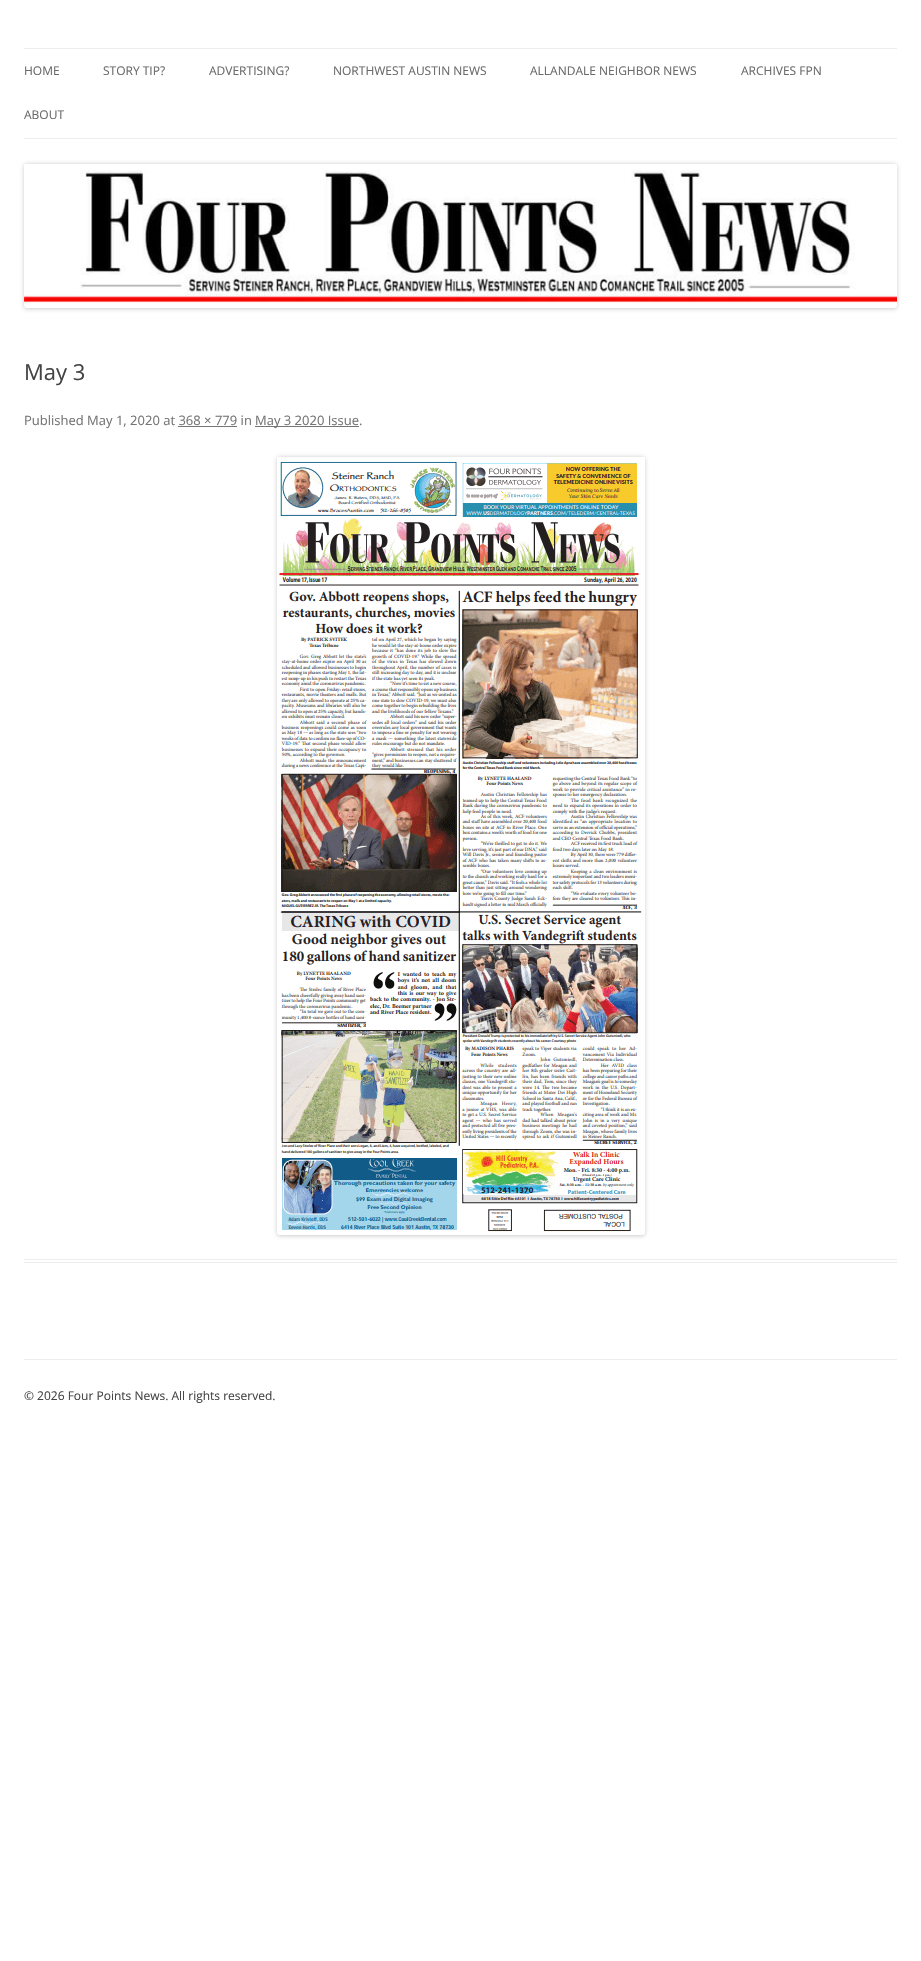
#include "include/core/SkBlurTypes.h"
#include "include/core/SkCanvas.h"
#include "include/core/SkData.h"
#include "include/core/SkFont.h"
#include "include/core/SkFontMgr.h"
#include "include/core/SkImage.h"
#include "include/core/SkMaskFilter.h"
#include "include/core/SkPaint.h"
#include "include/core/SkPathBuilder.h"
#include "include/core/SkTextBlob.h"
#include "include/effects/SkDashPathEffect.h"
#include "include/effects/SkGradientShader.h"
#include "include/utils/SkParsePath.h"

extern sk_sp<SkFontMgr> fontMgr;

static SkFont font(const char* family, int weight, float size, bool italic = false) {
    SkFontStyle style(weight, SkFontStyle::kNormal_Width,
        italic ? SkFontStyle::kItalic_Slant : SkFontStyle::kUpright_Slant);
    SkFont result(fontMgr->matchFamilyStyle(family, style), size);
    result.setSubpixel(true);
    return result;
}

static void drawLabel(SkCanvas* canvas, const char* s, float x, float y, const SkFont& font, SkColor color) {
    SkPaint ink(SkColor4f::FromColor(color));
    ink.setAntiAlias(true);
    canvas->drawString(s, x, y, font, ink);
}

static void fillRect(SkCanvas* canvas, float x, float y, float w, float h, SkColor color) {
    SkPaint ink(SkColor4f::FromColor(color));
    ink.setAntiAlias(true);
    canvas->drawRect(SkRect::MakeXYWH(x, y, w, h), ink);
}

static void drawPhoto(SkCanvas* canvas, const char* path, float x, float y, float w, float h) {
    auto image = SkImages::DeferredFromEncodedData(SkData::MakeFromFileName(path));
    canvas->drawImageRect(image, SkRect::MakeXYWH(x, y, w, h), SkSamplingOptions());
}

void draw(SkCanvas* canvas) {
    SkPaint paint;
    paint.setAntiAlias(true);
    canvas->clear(0xFFFFFFFF);
    fillRect(canvas, 24, 48, 873, 1, 0xFFEDEDED);
    fillRect(canvas, 24, 138, 873, 1, 0xFFEDEDED);
    SkFont font1 = font("Open Sans", 400, 12);
    drawLabel(canvas, "HOME", 24, 75, font1, 0xFF6A6A6A);
    drawLabel(canvas, "STORY TIP?", 103, 75, font1, 0xFF6A6A6A);
    drawLabel(canvas, "ADVERTISING?", 209, 75, font1, 0xFF6A6A6A);
    drawLabel(canvas, "NORTHWEST AUSTIN NEWS", 333, 75, font1, 0xFF6A6A6A);
    drawLabel(canvas, "ALLANDALE NEIGHBOR NEWS", 530, 75, font1, 0xFF6A6A6A);
    drawLabel(canvas, "ARCHIVES FPN", 741, 75, font1, 0xFF6A6A6A);
    drawLabel(canvas, "ABOUT", 24, 119, font1, 0xFF6A6A6A);
    paint.setColor(0x33000000);
    paint.setMaskFilter(SkMaskFilter::MakeBlur(kNormal_SkBlurStyle, 2));
    canvas->drawRoundRect(SkRect::MakeXYWH(24, 164, 873, 145), 3, 3, paint);
    paint.setMaskFilter(nullptr);
    drawPhoto(canvas, "assets/img1.png", 24, 164, 873, 144);
    fillRect(canvas, 24, 1259, 873, 1, 0xFFEDEDED);
    fillRect(canvas, 24, 1262, 873, 1, 0xFFEDEDED);
    SkFont font2 = font("Open Sans", 400, 22);
    drawLabel(canvas, "May 3", 24, 380, font2, 0xFF444444);
    SkFont font3 = font("Open Sans", 400, 13);
    drawLabel(canvas, "Published May 1, 2020 at 368 × 779 in", 24, 425, font3, 0xFF757575);
    fillRect(canvas, 255, 426, 104, 1, 0xFF757575);
    drawLabel(canvas, "May 3 2020 Issue.", 255, 425, font3, 0xFF757575);
    fillRect(canvas, 178, 426, 59, 1, 0xFF757575);
    paint.setMaskFilter(SkMaskFilter::MakeBlur(kNormal_SkBlurStyle, 2));
    canvas->drawRoundRect(SkRect::MakeXYWH(277, 457, 368, 779), 3, 3, paint);
    paint.setMaskFilter(nullptr);
    drawPhoto(canvas, "assets/img2.png", 277, 457, 368, 778);
    fillRect(canvas, 24, 1359, 873, 1, 0xFFEDEDED);
    drawLabel(canvas, "© 2026 Four Points News. All rights reserved.", 24, 1400, font1, 0xFF444444);
}
